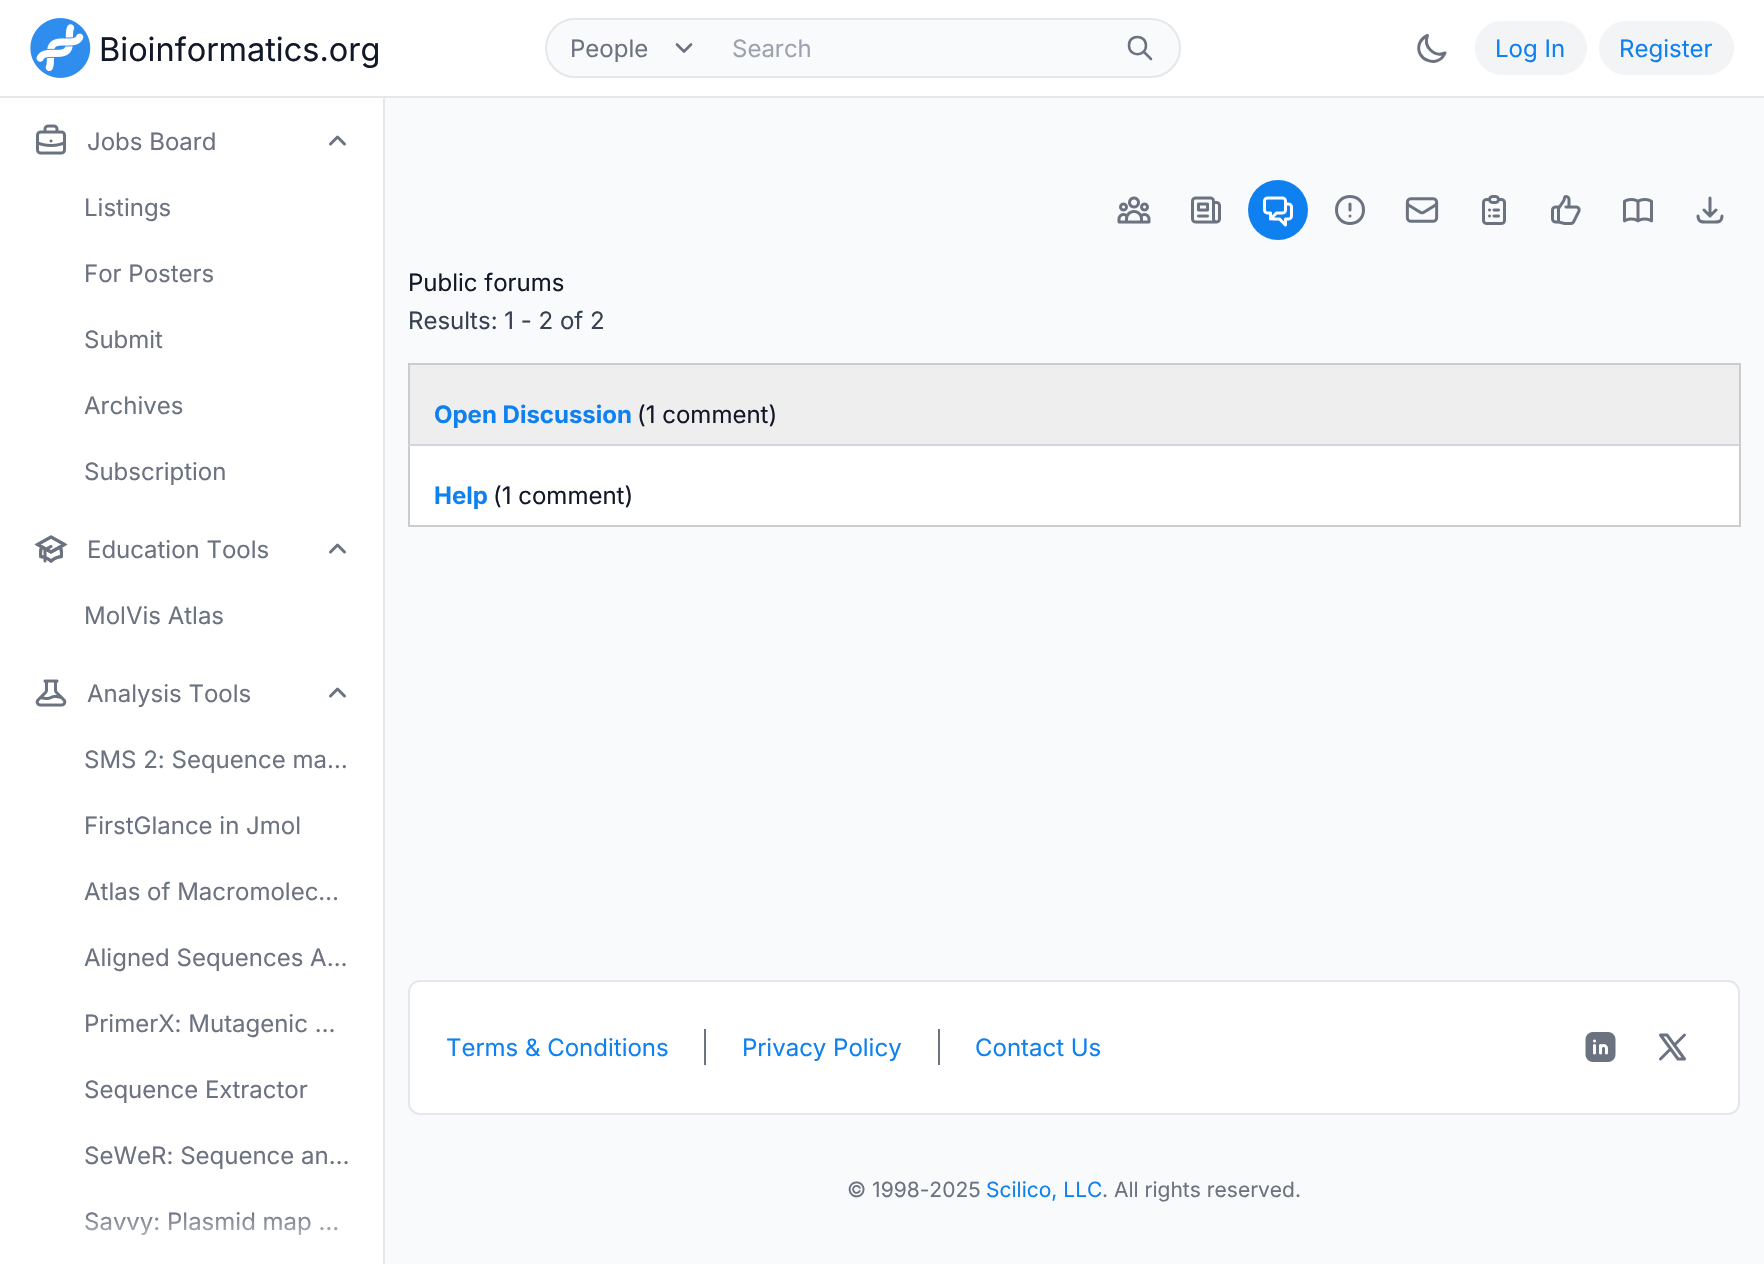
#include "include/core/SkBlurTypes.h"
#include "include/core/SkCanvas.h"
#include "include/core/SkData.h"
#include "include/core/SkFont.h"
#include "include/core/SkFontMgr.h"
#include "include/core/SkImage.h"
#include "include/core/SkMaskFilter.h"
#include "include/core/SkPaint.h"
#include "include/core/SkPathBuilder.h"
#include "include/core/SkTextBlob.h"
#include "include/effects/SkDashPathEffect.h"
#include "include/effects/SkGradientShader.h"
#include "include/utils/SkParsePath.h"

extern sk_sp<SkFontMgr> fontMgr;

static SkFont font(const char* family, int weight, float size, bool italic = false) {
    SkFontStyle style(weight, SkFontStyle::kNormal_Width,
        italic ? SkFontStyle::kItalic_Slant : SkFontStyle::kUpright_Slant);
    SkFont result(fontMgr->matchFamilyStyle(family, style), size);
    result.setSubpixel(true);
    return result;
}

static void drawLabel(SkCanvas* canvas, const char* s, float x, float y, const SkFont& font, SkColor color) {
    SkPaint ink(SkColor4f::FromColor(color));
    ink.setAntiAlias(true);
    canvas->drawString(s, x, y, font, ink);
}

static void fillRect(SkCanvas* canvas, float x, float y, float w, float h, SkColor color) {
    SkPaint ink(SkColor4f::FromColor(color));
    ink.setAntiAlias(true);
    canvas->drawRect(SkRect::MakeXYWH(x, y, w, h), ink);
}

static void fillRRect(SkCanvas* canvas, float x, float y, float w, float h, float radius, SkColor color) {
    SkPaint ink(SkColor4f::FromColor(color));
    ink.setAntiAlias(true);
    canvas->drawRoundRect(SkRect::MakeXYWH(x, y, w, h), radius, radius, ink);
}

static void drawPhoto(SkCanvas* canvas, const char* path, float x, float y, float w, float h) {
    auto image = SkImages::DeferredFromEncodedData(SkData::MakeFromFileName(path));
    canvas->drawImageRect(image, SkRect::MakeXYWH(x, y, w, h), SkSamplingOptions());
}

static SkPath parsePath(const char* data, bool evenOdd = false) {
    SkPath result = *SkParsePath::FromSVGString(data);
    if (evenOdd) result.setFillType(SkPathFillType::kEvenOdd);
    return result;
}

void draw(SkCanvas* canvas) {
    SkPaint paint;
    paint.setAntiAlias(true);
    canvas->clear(0xFFF9FAFB);
    fillRect(canvas, 0, 0, 1764, 96, 0xFFFFFFFF);
    fillRect(canvas, 383, 96, 2, 1168, 0xFFE5E7EB);
    fillRect(canvas, 0, 96, 1764, 2, 0xFFE5E7EB);
    drawPhoto(canvas, "assets/img1.png", 30, 18, 61, 60);
    SkFont font1 = font("Inter", 400, 32.5f);
    drawLabel(canvas, "Bioinformatics.org", 99, 61, font1, 0xFF111827);
    paint.setColor(0xFFF9FAFB);
    canvas->drawRoundRect(SkRect::MakeXYWH(546, 19, 634, 58), 29, 29, paint);
    paint.setStroke(true);
    paint.setStrokeWidth(2);
    paint.setColor(0xFFE5E7EB);
    canvas->drawRoundRect(SkRect::MakeXYWH(546, 19, 634, 58), 29, 29, paint);
    paint.setStrokeWidth(2.7f);
    paint.setStrokeCap(SkPaint::kRound_Cap);
    paint.setStrokeJoin(SkPaint::kRound_Join);
    paint.setColor(0xFF6B7280);
    canvas->drawPath(parsePath("M677 44.5L684 51.5L691 44.5"), paint);
    SkFont font2 = font("Inter", 400, 24);
    drawLabel(canvas, "People", 570, 57, font2, 0xFF6B7280);
    drawLabel(canvas, "Search", 732, 57, font2, 0xFF9CA3AF);
    paint.setStrokeWidth(2.5f);
    canvas->drawPath(parsePath("M1151 59L1144 52M1146 45.5C1146 57 1129 57 1129 45.5C1128.5 34 1146 34 1146 45.5"), paint);
    paint.setStrokeWidth(3);
    canvas->drawPath(parsePath("M1445 53C1434 57.5 1423 46.5 1427.5 35.5C1424 37 1421 40 1419.5 43.5C1414 60 1438.5 69 1445 53"), paint);
    fillRRect(canvas, 1475, 21, 112, 54, 27, 0xFFF3F4F6);
    drawLabel(canvas, "Log In", 1495, 57, font2, 0xFF0F80F0);
    fillRRect(canvas, 1599, 21, 135, 54, 27, 0xFFF3F4F6);
    drawLabel(canvas, "Register", 1619, 57, font2, 0xFF0F80F0);
    fillRect(canvas, 0, 98, 383, 1166, 0xFFFFFFFF);
    drawPhoto(canvas, "assets/img2.png", 36, 124, 30, 31);
    drawLabel(canvas, "Jobs Board", 87, 150, font2, 0xFF6B7280);
    canvas->drawPath(parsePath("M330.5 144L337.5 137L344.5 144"), paint);
    drawLabel(canvas, "Listings", 84, 216, font2, 0xFF6B7280);
    drawLabel(canvas, "For Posters", 84, 282, font2, 0xFF6B7280);
    drawLabel(canvas, "Submit", 84, 348, font2, 0xFF6B7280);
    drawLabel(canvas, "Archives", 84, 414, font2, 0xFF6B7280);
    drawLabel(canvas, "Subscription", 84, 480, font2, 0xFF6B7280);
    drawPhoto(canvas, "assets/img3.png", 34, 535, 34, 28);
    drawLabel(canvas, "Education Tools", 87, 558, font2, 0xFF6B7280);
    canvas->drawPath(parsePath("M330.5 552L337.5 545L344.5 552"), paint);
    drawLabel(canvas, "MolVis Atlas", 84, 624, font2, 0xFF6B7280);
    drawPhoto(canvas, "assets/img4.png", 35, 679, 32, 28);
    drawLabel(canvas, "Analysis Tools", 87, 702, font2, 0xFF6B7280);
    canvas->drawPath(parsePath("M330.5 696L337.5 689L344.5 696"), paint);
    drawLabel(canvas, "SMS 2: Sequence ma…", 84, 768, font2, 0xFF6B7280);
    drawLabel(canvas, "FirstGlance in Jmol", 84, 834, font2, 0xFF6B7280);
    drawLabel(canvas, "Atlas of Macromolec…", 84, 900, font2, 0xFF6B7280);
    drawLabel(canvas, "Aligned Sequences A…", 84, 966, font2, 0xFF6B7280);
    drawLabel(canvas, "PrimerX: Mutagenic …", 84, 1032, font2, 0xFF6B7280);
    drawLabel(canvas, "Sequence Extractor", 84, 1098, font2, 0xFF6B7280);
    drawLabel(canvas, "SeWeR: Sequence an…", 84, 1164, font2, 0xFF6B7280);
    drawLabel(canvas, "Savvy: Plasmid map …", 84, 1230, font2, 0xFF6B7280);
    paint.setStroke(false);
    {
        const SkColor colors[] = {0xFFFFFFFF, 0x00FFFFFF};
        const float stops[] = {0, 1};
        const SkPoint ends[] = {{191, 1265}, {191, 1211}};
        paint.setShader(SkGradientShader::MakeLinear(ends, colors, stops, 2, SkTileMode::kClamp));
        paint.setAlpha(255);
    }
    canvas->drawRect(SkRect::MakeXYWH(85, 1212, 253, 23), paint);
    drawPhoto(canvas, "assets/img5.png", 1117, 196, 34, 28);
    drawPhoto(canvas, "assets/img6.png", 1191, 196, 30, 28);
    paint.setShader(nullptr);
    paint.setColor(0xFF0F80F0);
    canvas->drawCircle(1278, 210, 30, paint);
    drawPhoto(canvas, "assets/img7.png", 1263, 196, 30, 31);
    paint.setStroke(true);
    paint.setColor(0xFF6B7280);
    canvas->drawPath(parsePath("M1350 204V210M1350 216H1350M1363.5 210C1363.5 228 1336.5 228 1336.5 210C1336.5 192 1363.5 192 1363.5 210"), paint);
    drawPhoto(canvas, "assets/img8.png", 1405, 197, 34, 26);
    drawPhoto(canvas, "assets/img9.png", 1482, 195, 24, 30);
    drawPhoto(canvas, "assets/img10.png", 1551, 195, 30, 30);
    drawPhoto(canvas, "assets/img11.png", 1623, 198, 30, 25);
    canvas->drawPath(parsePath("M1698 216C1698 223.5 1704 222 1710 222C1716 222 1722 223.5 1722 216M1716 210L1710 216M1710 216L1704 210M1710 216V198"), paint);
    drawLabel(canvas, "Public forums", 408, 291, font2, 0xFF111827);
    drawLabel(canvas, "Results: 1 - 2 of 2", 408, 329, font2, 0xFF374151);
    fillRect(canvas, 408, 363, 1332, 2, 0xFFCCCCCC);
    fillRect(canvas, 1739, 363, 2, 164, 0xFFCCCCCC);
    fillRect(canvas, 408, 525, 1332, 2, 0xFFCCCCCC);
    fillRect(canvas, 408, 363, 2, 164, 0xFFCCCCCC);
    fillRect(canvas, 410, 365, 1329, 79, 0xFFEEEEEE);
    fillRect(canvas, 408, 444, 1332, 2, 0xFFD1D5DB);
    SkFont font3 = font("Inter", 700, 24);
    drawLabel(canvas, "Open Discussion", 434, 423, font3, 0xFF0F80F0);
    drawLabel(canvas, "(1 comment)", 637, 423, font2, 0xFF111827);
    fillRect(canvas, 410, 446, 1329, 79, 0xFFFFFFFF);
    drawLabel(canvas, "Help", 434, 504, font3, 0xFF0F80F0);
    drawLabel(canvas, "(1 comment)", 493, 504, font2, 0xFF111827);
    paint.setStroke(false);
    paint.setColor(0xFFFFFFFF);
    canvas->drawRoundRect(SkRect::MakeXYWH(409, 981, 1330, 133), 11, 11, paint);
    paint.setStroke(true);
    paint.setStrokeWidth(2);
    paint.setStrokeCap(SkPaint::kButt_Cap);
    paint.setStrokeJoin(SkPaint::kMiter_Join);
    paint.setColor(0xFFE5E7EB);
    canvas->drawRoundRect(SkRect::MakeXYWH(409, 981, 1330, 133), 11, 11, paint);
    drawLabel(canvas, "Terms & Conditions", 446, 1056, font2, 0xFF0F80F0);
    fillRect(canvas, 704, 1029, 2, 36, 0xFF6B7280);
    drawLabel(canvas, "Privacy Policy", 742, 1056, font2, 0xFF0F80F0);
    fillRect(canvas, 938, 1029, 2, 36, 0xFF6B7280);
    drawLabel(canvas, "Contact Us", 975, 1056, font2, 0xFF0F80F0);
    drawPhoto(canvas, "assets/img12.png", 1585, 1032, 31, 30);
    paint.setStrokeWidth(3);
    paint.setStrokeCap(SkPaint::kRound_Cap);
    paint.setStrokeJoin(SkPaint::kRound_Join);
    paint.setColor(0xFF6B7280);
    canvas->drawPath(parsePath("M1660.5 1035L1678 1059H1684.5L1667 1035ZM1660.5 1059L1670.5 1049M1674.5 1045L1684.5 1035"), paint);
    SkFont font4 = font("Inter", 400, 21);
    drawLabel(canvas, "© 1998-2025", 847, 1197, font4, 0xFF6B7280);
    drawLabel(canvas, "Scilico, LLC", 986, 1197, font4, 0xFF0F80F0);
    drawLabel(canvas, ". All rights reserved.", 1102, 1197, font4, 0xFF6B7280);
}
